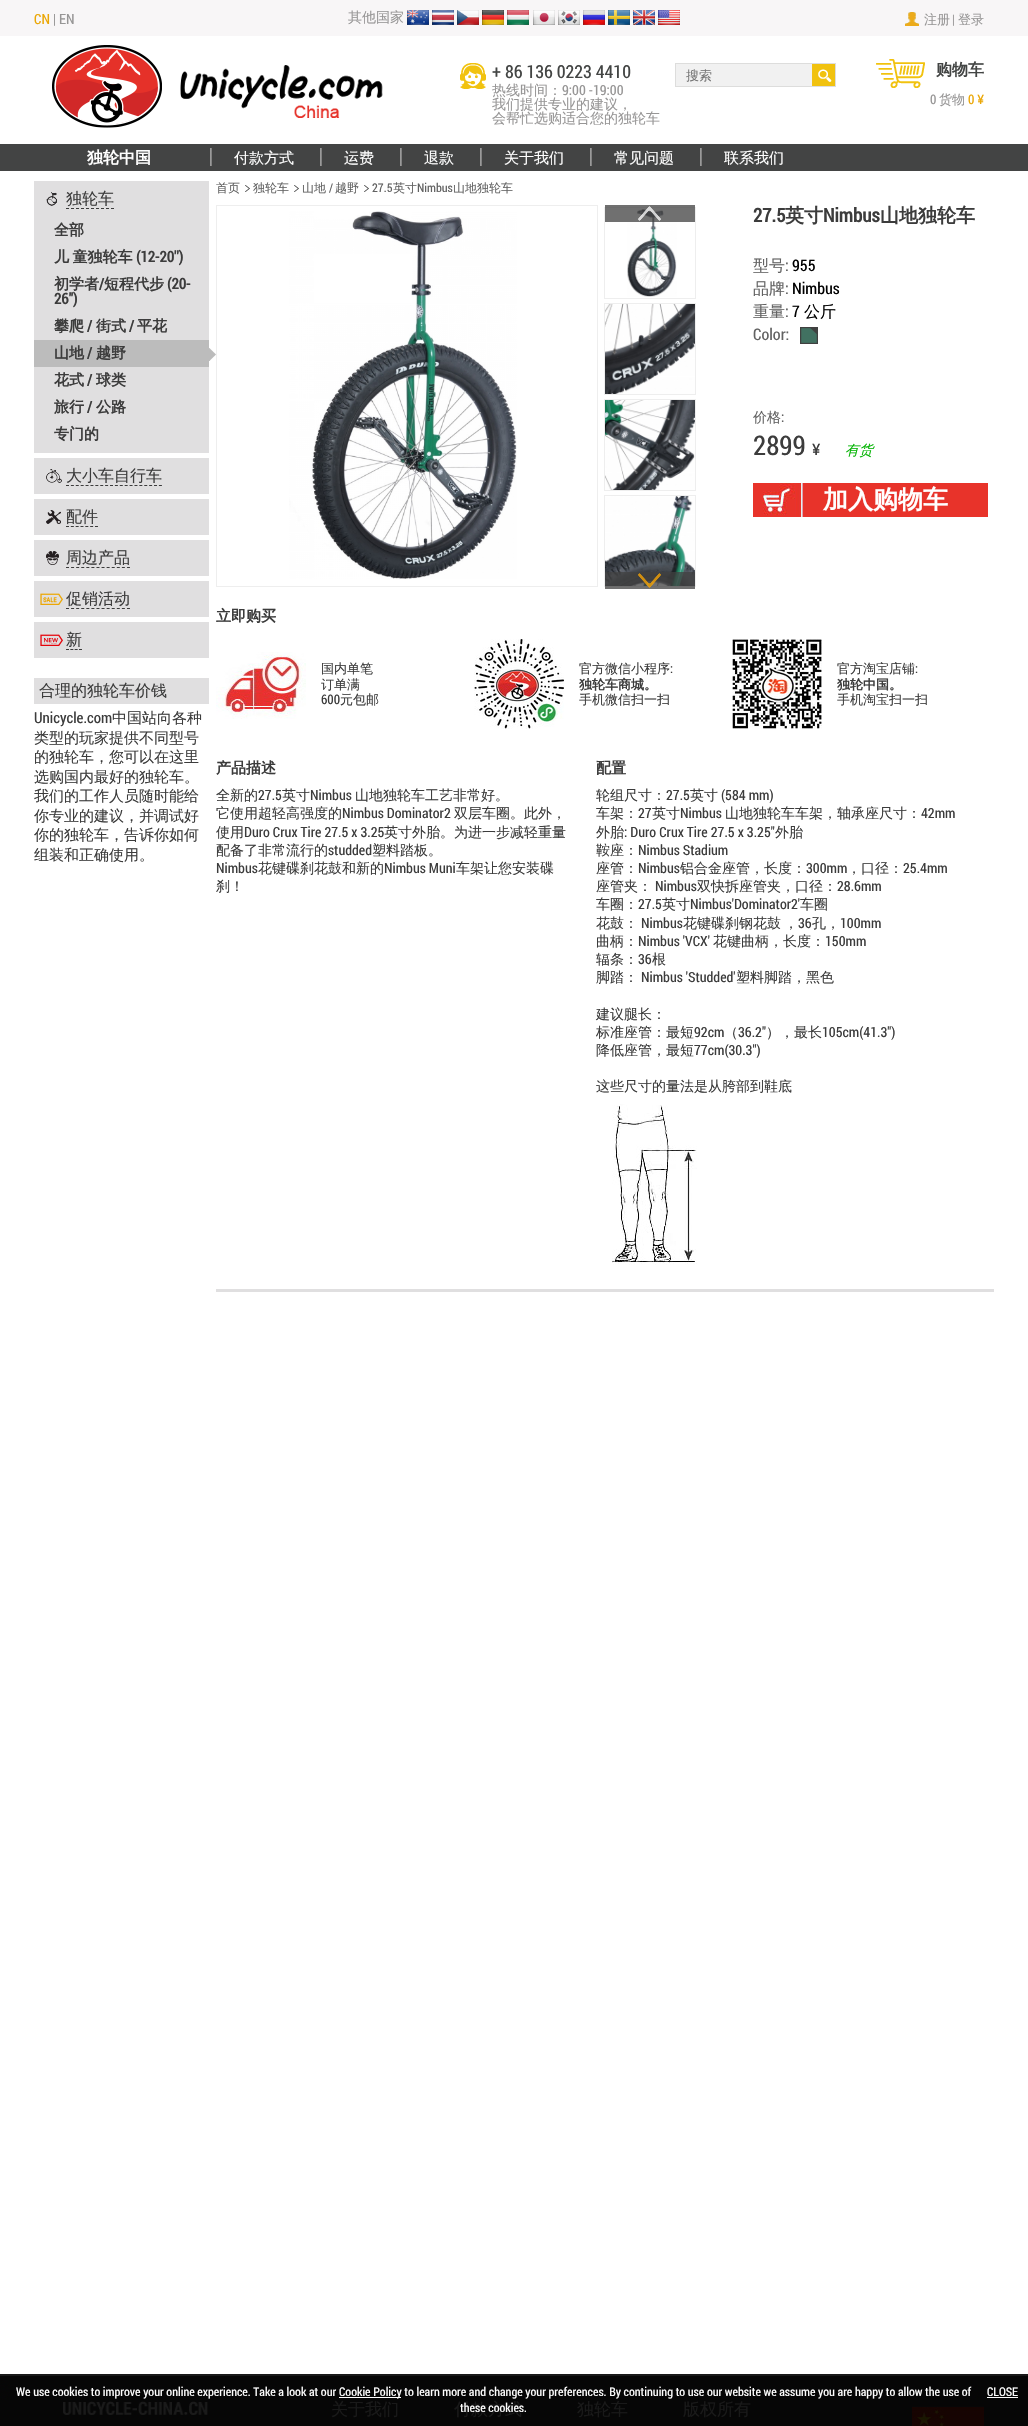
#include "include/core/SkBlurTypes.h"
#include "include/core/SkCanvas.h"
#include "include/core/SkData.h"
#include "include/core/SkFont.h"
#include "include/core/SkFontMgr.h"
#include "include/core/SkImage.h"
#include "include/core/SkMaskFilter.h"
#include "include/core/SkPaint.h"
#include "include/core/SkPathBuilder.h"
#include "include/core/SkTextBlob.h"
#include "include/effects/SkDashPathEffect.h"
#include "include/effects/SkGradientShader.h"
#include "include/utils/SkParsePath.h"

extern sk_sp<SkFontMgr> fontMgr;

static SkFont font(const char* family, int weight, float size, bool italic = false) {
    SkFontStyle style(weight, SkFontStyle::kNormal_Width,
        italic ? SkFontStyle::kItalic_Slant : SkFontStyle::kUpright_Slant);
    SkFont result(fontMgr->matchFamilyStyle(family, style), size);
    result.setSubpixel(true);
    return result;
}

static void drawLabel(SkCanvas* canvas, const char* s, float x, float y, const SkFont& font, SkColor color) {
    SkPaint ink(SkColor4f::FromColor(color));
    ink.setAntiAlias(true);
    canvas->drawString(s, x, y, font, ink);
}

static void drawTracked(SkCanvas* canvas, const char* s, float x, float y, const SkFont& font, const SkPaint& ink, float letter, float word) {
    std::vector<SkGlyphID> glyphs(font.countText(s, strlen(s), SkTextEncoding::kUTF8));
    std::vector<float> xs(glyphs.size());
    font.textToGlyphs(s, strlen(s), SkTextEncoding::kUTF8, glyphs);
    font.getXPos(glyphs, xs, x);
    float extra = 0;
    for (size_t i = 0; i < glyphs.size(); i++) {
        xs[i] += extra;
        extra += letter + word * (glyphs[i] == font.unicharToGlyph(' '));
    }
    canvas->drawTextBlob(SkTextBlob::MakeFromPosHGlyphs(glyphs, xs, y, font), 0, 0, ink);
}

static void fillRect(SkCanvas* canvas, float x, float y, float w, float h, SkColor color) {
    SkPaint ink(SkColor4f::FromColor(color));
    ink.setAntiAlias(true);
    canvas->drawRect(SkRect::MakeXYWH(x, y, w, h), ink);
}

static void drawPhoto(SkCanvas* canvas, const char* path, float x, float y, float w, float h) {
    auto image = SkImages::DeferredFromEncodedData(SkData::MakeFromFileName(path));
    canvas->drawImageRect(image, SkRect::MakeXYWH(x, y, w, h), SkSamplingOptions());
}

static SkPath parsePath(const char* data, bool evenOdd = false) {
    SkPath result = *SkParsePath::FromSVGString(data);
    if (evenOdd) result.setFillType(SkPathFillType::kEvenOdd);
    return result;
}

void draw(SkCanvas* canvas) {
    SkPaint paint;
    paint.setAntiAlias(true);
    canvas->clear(0xFFFFFFFF);
    fillRect(canvas, 0, 2374, 1028, 2, 0xFF191919);
    fillRect(canvas, 0, 0, 1028, 36, 0xFFF8F6F7);
    SkFont font1 = font("Roboto Condensed", 400, 14);
    drawLabel(canvas, "CN", 34, 24, font1, 0xFFEBA706);
    drawLabel(canvas, "| EN", 53, 24, font1, 0xFF979696);
    SkFont font2 = font("WenQuanYi Zen Hei", 500, 14);
    drawLabel(canvas, "其他国家", 348, 22, font2, 0xFF979696);
    drawPhoto(canvas, "assets/img1.png", 407, 10, 22, 15);
    drawPhoto(canvas, "assets/img2.png", 432, 10, 22, 15);
    drawPhoto(canvas, "assets/img3.png", 457, 10, 22, 15);
    drawPhoto(canvas, "assets/img4.png", 482, 10, 22, 15);
    drawPhoto(canvas, "assets/img5.png", 507, 10, 22, 15);
    drawPhoto(canvas, "assets/img6.png", 533, 10, 22, 15);
    drawPhoto(canvas, "assets/img7.png", 558, 10, 22, 15);
    drawPhoto(canvas, "assets/img8.png", 583, 10, 22, 15);
    drawPhoto(canvas, "assets/img9.png", 608, 10, 22, 15);
    drawPhoto(canvas, "assets/img10.png", 633, 10, 22, 15);
    drawPhoto(canvas, "assets/img11.png", 658, 10, 22, 15);
    drawPhoto(canvas, "assets/img12.png", 52, 45, 331, 83);
    drawPhoto(canvas, "assets/img13.png", 905, 12, 14, 14);
    SkFont font3 = font("WenQuanYi Zen Hei", 500, 13);
    drawLabel(canvas, "注册", 924, 24, font3, 0xFF979696);
    SkFont font4 = font("Roboto Condensed", 400, 13);
    drawLabel(canvas, "|", 952, 24, font4, 0xFF979696);
    drawLabel(canvas, "登录", 958, 24, font3, 0xFF979696);
    drawPhoto(canvas, "assets/img14.png", 460, 63, 26, 26);
    SkFont font5 = font("Roboto Condensed", 400, 18);
    drawLabel(canvas, "+ 86 136 0223 4410", 492, 78, font5, 0xFF434544);
    drawLabel(canvas, "热线时间：", 492, 95, font2, 0xFF979696);
    drawLabel(canvas, "9:00 -19:00", 562, 95, font1, 0xFF979696);
    drawLabel(canvas, "我们提供专业的建议，", 492, 109, font2, 0xFF979696);
    drawLabel(canvas, "会帮忙选购适合您的独轮车", 492, 123, font2, 0xFF979696);
    fillRect(canvas, 676, 64, 136, 22, 0xFFF1F1F1);
    paint.setStroke(true);
    paint.setStrokeWidth(1);
    paint.setColor(0xFFDDDDDC);
    canvas->drawRect(SkRect::MakeXYWH(675.5f, 63.5f, 160, 23), paint);
    drawLabel(canvas, "搜索", 686, 80, font3, 0xFF757575);
    fillRect(canvas, 812, 64, 1, 22, 0xFFF1C116);
    drawPhoto(canvas, "assets/img15.png", 813, 64, 22, 22);
    drawPhoto(canvas, "assets/img16.png", 876, 59, 49, 29);
    SkFont font6 = font("WenQuanYi Zen Hei", 700, 16);
    drawLabel(canvas, "购物车", 936, 75, font6, 0xFF434544);
    drawLabel(canvas, "0", 930, 104, font4, 0xFF979696);
    drawLabel(canvas, "货物", 939, 104, font3, 0xFF979696);
    drawLabel(canvas, "0 ¥", 968, 104, font4, 0xFFEBA706);
    fillRect(canvas, 0, 144, 1028, 27, 0xFF434444);
    drawLabel(canvas, "独轮中国", 87, 163, font6, 0xFFFFFFFF);
    drawPhoto(canvas, "assets/img17.png", 210, 148, 2, 18);
    SkFont font7 = font("WenQuanYi Zen Hei", 500, 15);
    drawLabel(canvas, "付款方式", 234, 163, font7, 0xFFFFFFFF);
    drawPhoto(canvas, "assets/img17.png", 320, 148, 2, 18);
    drawLabel(canvas, "运费", 344, 163, font7, 0xFFFFFFFF);
    drawPhoto(canvas, "assets/img17.png", 400, 148, 2, 18);
    drawLabel(canvas, "退款", 424, 163, font7, 0xFFFFFFFF);
    drawPhoto(canvas, "assets/img17.png", 480, 148, 2, 18);
    drawLabel(canvas, "关于我们", 504, 163, font7, 0xFFFFFFFF);
    drawPhoto(canvas, "assets/img17.png", 590, 148, 2, 18);
    drawLabel(canvas, "常见问题", 614, 163, font7, 0xFFFFFFFF);
    drawPhoto(canvas, "assets/img17.png", 700, 148, 2, 18);
    drawLabel(canvas, "联系我们", 724, 163, font7, 0xFFFFFFFF);
    fillRect(canvas, 34, 181, 175, 272, 0xFFE0DFE0);
    drawPhoto(canvas, "assets/img18.png", 46, 192, 11, 14);
    SkFont font8 = font("WenQuanYi Zen Hei", 500, 16);
    drawLabel(canvas, "独轮车", 66, 204, font8, 0xFF3C3C3C);
    paint.setColor(0xFF3C3C3C);
    paint.setPathEffect(SkDashPathEffect::Make({{3, 2}}, 0));
    canvas->drawPath(parsePath("M66 208.5H114"), paint);
    paint.setPathEffect(nullptr);
    SkFont font9 = font("WenQuanYi Zen Hei", 700, 15);
    drawLabel(canvas, "全部", 54, 235, font9, 0xFF3C3C3C);
    paint.setStroke(false);
    drawTracked(canvas, "儿 童独轮车", 54, 262, font9, paint, 0, -1);
    SkFont font10 = font("Roboto Condensed", 700, 15);
    drawLabel(canvas, "(12-20'')", 136, 262, font10, 0xFF3C3C3C);
    drawLabel(canvas, "初学者", 54, 289, font9, 0xFF3C3C3C);
    drawLabel(canvas, "/", 99, 289, font10, 0xFF3C3C3C);
    drawLabel(canvas, "短程代步", 104, 289, font9, 0xFF3C3C3C);
    drawLabel(canvas, "(20-", 167, 289, font10, 0xFF3C3C3C);
    drawLabel(canvas, "26\")", 54, 304, font10, 0xFF3C3C3C);
    drawLabel(canvas, "攀爬", 54, 331, font9, 0xFF3C3C3C);
    drawLabel(canvas, "/", 87, 331, font10, 0xFF3C3C3C);
    drawLabel(canvas, "街式", 96, 331, font9, 0xFF3C3C3C);
    drawLabel(canvas, "/", 129, 331, font10, 0xFF3C3C3C);
    drawLabel(canvas, "平花", 137, 331, font9, 0xFF3C3C3C);
    fillRect(canvas, 34, 340, 175, 27, 0xFFBCBCBC);
    drawLabel(canvas, "山地", 54, 358, font9, 0xFF3C3C3C);
    drawLabel(canvas, "/", 87, 358, font10, 0xFF3C3C3C);
    drawLabel(canvas, "越野", 96, 358, font9, 0xFF3C3C3C);
    drawPhoto(canvas, "assets/img19.png", 209, 348, 7, 13);
    drawLabel(canvas, "花式", 54, 385, font9, 0xFF3C3C3C);
    drawLabel(canvas, "/", 87, 385, font10, 0xFF3C3C3C);
    drawLabel(canvas, "球类", 96, 385, font9, 0xFF3C3C3C);
    drawLabel(canvas, "旅行", 54, 412, font9, 0xFF3C3C3C);
    drawLabel(canvas, "/", 87, 412, font10, 0xFF3C3C3C);
    drawLabel(canvas, "公路", 96, 412, font9, 0xFF3C3C3C);
    drawLabel(canvas, "专门的", 54, 439, font9, 0xFF3C3C3C);
    fillRect(canvas, 34, 458, 175, 36, 0xFFE0DFE0);
    drawPhoto(canvas, "assets/img20.png", 46, 469, 16, 14);
    drawLabel(canvas, "大小车自行车", 66, 481, font8, 0xFF3C3C3C);
    paint.setStroke(true);
    paint.setPathEffect(SkDashPathEffect::Make({{3, 1.89f}}, 0));
    canvas->drawPath(parsePath("M66 485.5H162"), paint);
    paint.setPathEffect(nullptr);
    fillRect(canvas, 34, 499, 175, 36, 0xFFE0DFE0);
    drawPhoto(canvas, "assets/img21.png", 46, 510, 15, 14);
    drawLabel(canvas, "配件", 66, 522, font8, 0xFF3C3C3C);
    paint.setPathEffect(SkDashPathEffect::Make({{3, 1.83f}}, 0));
    canvas->drawPath(parsePath("M66 526.5H98"), paint);
    paint.setPathEffect(nullptr);
    fillRect(canvas, 34, 540, 175, 36, 0xFFE0DFE0);
    drawPhoto(canvas, "assets/img22.png", 46, 551, 13, 14);
    drawLabel(canvas, "周边产品", 66, 563, font8, 0xFF3C3C3C);
    paint.setPathEffect(SkDashPathEffect::Make({{3, 2.08f}}, 0));
    canvas->drawPath(parsePath("M66 567.5H130"), paint);
    paint.setPathEffect(nullptr);
    fillRect(canvas, 34, 581, 175, 36, 0xFFE0DFE0);
    drawPhoto(canvas, "assets/img23.png", 40, 593, 23, 12);
    drawLabel(canvas, "促销活动", 66, 604, font8, 0xFF3C3C3C);
    paint.setPathEffect(SkDashPathEffect::Make({{3, 2.08f}}, 0));
    canvas->drawPath(parsePath("M66 608.5H130"), paint);
    paint.setPathEffect(nullptr);
    fillRect(canvas, 34, 622, 175, 36, 0xFFE0DFE0);
    drawPhoto(canvas, "assets/img24.png", 40, 634, 23, 12);
    drawLabel(canvas, "新", 66, 645, font8, 0xFF3C3C3C);
    paint.setPathEffect(SkDashPathEffect::Make({{3, 1.33f}}, 0));
    canvas->drawPath(parsePath("M66 649.5H82"), paint);
    paint.setPathEffect(nullptr);
    fillRect(canvas, 34, 678, 175, 26, 0xFFE0DFE0);
    drawLabel(canvas, "合理的独轮车价钱", 39, 696, font8, 0xFF3C3C3C);
    SkFont font11 = font("Roboto Condensed", 400, 15);
    drawLabel(canvas, "Unicycle.com", 34, 723, font11, 0xFF3C3C3C);
    drawLabel(canvas, "中国站向各种", 112, 723, font7, 0xFF3C3C3C);
    drawLabel(canvas, "类型的玩家提供不同型号", 34, 743, font7, 0xFF3C3C3C);
    drawLabel(canvas, "的独轮车，您可以在这里", 34, 762, font7, 0xFF3C3C3C);
    drawLabel(canvas, "选购国内最好的独轮车。", 34, 782, font7, 0xFF3C3C3C);
    drawLabel(canvas, "我们的工作人员随时能给", 34, 801, font7, 0xFF3C3C3C);
    drawLabel(canvas, "你专业的建议，并调试好", 34, 821, font7, 0xFF3C3C3C);
    drawLabel(canvas, "你的独轮车，告诉你如何", 34, 840, font7, 0xFF3C3C3C);
    drawLabel(canvas, "组装和正确使用。", 34, 860, font7, 0xFF3C3C3C);
    drawPhoto(canvas, "assets/img25.png", 245, 185, 5, 7);
    SkFont font12 = font("WenQuanYi Zen Hei", 500, 12);
    drawLabel(canvas, "首页", 216, 192, font12, 0xFF626262);
    drawPhoto(canvas, "assets/img25.png", 294, 185, 5, 7);
    drawLabel(canvas, "独轮车", 253, 192, font12, 0xFF626262);
    drawPhoto(canvas, "assets/img25.png", 364, 185, 5, 7);
    drawLabel(canvas, "山地", 302, 192, font12, 0xFF626262);
    SkFont font13 = font("Roboto Condensed", 400, 12);
    drawLabel(canvas, "/", 329, 192, font13, 0xFF626262);
    drawLabel(canvas, "越野", 335, 192, font12, 0xFF626262);
    drawLabel(canvas, "27.5", 372, 192, font13, 0xFF626262);
    drawLabel(canvas, "英寸", 393, 192, font12, 0xFF626262);
    drawLabel(canvas, "Nimbus", 417, 192, font13, 0xFF626262);
    drawLabel(canvas, "山地独轮车", 453, 192, font12, 0xFF626262);
    paint.setColor(0xFFEEEEEE);
    canvas->drawRect(SkRect::MakeXYWH(216.5f, 205.5f, 381, 381), paint);
    drawPhoto(canvas, "assets/img26.png", 289, 211, 228, 368);
    canvas->drawRect(SkRect::MakeXYWH(604.5f, 207.5f, 91, 91), paint);
    drawPhoto(canvas, "assets/img28.png", 627, 209, 50, 88);
    fillRect(canvas, 605, 205, 90, 17, 0xBF404040);
    drawPhoto(canvas, "assets/img27.png", 638, 206, 23, 15);
    canvas->drawRect(SkRect::MakeXYWH(604.5f, 303.5f, 91, 91), paint);
    drawPhoto(canvas, "assets/img29.png", 605, 304, 90, 90);
    canvas->drawRect(SkRect::MakeXYWH(604.5f, 399.5f, 91, 91), paint);
    drawPhoto(canvas, "assets/img30.png", 605, 400, 90, 90);
    canvas->drawRect(SkRect::MakeXYWH(604.5f, 495.5f, 91, 91), paint);
    drawPhoto(canvas, "assets/img31.png", 605, 496, 90, 90);
    fillRect(canvas, 605, 572, 90, 17, 0xBF404040);
    drawPhoto(canvas, "assets/img32.png", 638, 573, 23, 15);
    SkFont font14 = font("Roboto Condensed", 700, 19);
    drawLabel(canvas, "27.5", 753, 222, font14, 0xFF3C3C3C);
    SkFont font15 = font("WenQuanYi Zen Hei", 700, 19);
    drawLabel(canvas, "英寸", 785, 222, font15, 0xFF3C3C3C);
    drawLabel(canvas, "Nimbus", 823, 222, font14, 0xFF3C3C3C);
    drawLabel(canvas, "山地独轮车", 880, 222, font15, 0xFF3C3C3C);
    drawLabel(canvas, "型号", 753, 271, font8, 0xFF626262);
    SkFont font16 = font("Roboto Condensed", 400, 16);
    drawLabel(canvas, ":", 785, 271, font16, 0xFF626262);
    drawLabel(canvas, "955", 792, 271, font16, 0xFF000000);
    drawLabel(canvas, "品牌", 753, 294, font8, 0xFF626262);
    drawLabel(canvas, ":", 785, 294, font16, 0xFF626262);
    drawLabel(canvas, "Nimbus", 792, 294, font16, 0xFF000000);
    drawLabel(canvas, "重量", 753, 317, font8, 0xFF626262);
    drawLabel(canvas, ":", 785, 317, font16, 0xFF626262);
    drawLabel(canvas, "7", 792, 317, font16, 0xFF000000);
    drawLabel(canvas, "公斤", 804, 317, font8, 0xFF000000);
    drawLabel(canvas, "Color:", 753, 340, font16, 0xFF626262);
    fillRect(canvas, 801, 328, 16, 15, 0xFF417161);
    drawPhoto(canvas, "assets/img33.png", 800, 327, 18, 17);
    drawLabel(canvas, "价格", 753, 422, font2, 0xFF626262);
    drawLabel(canvas, ":", 781, 422, font1, 0xFF626262);
    SkFont font17 = font("Roboto Condensed", 400, 27);
    drawLabel(canvas, "2899", 753, 455, font17, 0xFF3C3C3C);
    drawLabel(canvas, "¥", 812, 455, font16, 0xFF3C3C3C);
    SkFont font18 = font("WenQuanYi Zen Hei", 500, 14, true);
    drawLabel(canvas, "有货", 845, 455, font18, 0xFF04B404);
    fillRect(canvas, 753, 483, 235, 34, 0xFFE8332A);
    drawPhoto(canvas, "assets/img34.png", 763, 483, 40, 34);
    SkFont font19 = font("WenQuanYi Zen Hei", 700, 25);
    drawLabel(canvas, "加入购物车", 823, 508, font19, 0xFFFFFFFF);
    fillRect(canvas, 216, 1289, 778, 3, 0xFFE0DFE0);
    drawLabel(canvas, "立即购买", 216, 621, font9, 0xFF3C3C3C);
    drawPhoto(canvas, "assets/img35.png", 216, 652, 90, 67);
    drawLabel(canvas, "国内单笔", 321, 673, font3, 0xFF3C3C3C);
    drawLabel(canvas, "订单满", 321, 689, font3, 0xFF3C3C3C);
    drawLabel(canvas, "600", 321, 704, font4, 0xFF3C3C3C);
    drawLabel(canvas, "元包邮", 340, 704, font3, 0xFF3C3C3C);
    drawPhoto(canvas, "assets/img36.png", 474, 639, 90, 90);
    drawLabel(canvas, "官方微信小程序", 579, 673, font3, 0xFF3C3C3C);
    drawLabel(canvas, ":", 670, 673, font4, 0xFF3C3C3C);
    SkFont font20 = font("WenQuanYi Zen Hei", 700, 13);
    drawLabel(canvas, "独轮车商城。", 579, 689, font20, 0xFF3C3C3C);
    drawLabel(canvas, "手机微信扫一扫", 579, 704, font3, 0xFF3C3C3C);
    drawPhoto(canvas, "assets/img37.png", 732, 639, 90, 90);
    drawLabel(canvas, "官方淘宝店铺", 837, 673, font3, 0xFF3C3C3C);
    drawLabel(canvas, ":", 915, 673, font4, 0xFF3C3C3C);
    drawLabel(canvas, "独轮中国。", 837, 689, font20, 0xFF3C3C3C);
    drawLabel(canvas, "手机淘宝扫一扫", 837, 704, font3, 0xFF3C3C3C);
    drawLabel(canvas, "产品描述", 216, 773, font9, 0xFF3C3C3C);
    drawLabel(canvas, "全新的", 216, 800, font2, 0xFF3C3C3C);
    drawLabel(canvas, "27.5", 258, 800, font1, 0xFF3C3C3C);
    drawLabel(canvas, "英寸", 282, 800, font2, 0xFF3C3C3C);
    drawLabel(canvas, "Nimbus", 310, 800, font1, 0xFF3C3C3C);
    drawLabel(canvas, "山地独轮车工艺非常好。", 355, 800, font2, 0xFF3C3C3C);
    drawLabel(canvas, "它使用超轻高强度的", 216, 818, font2, 0xFF3C3C3C);
    drawLabel(canvas, "Nimbus Dominator2", 342, 818, font1, 0xFF3C3C3C);
    drawLabel(canvas, "双层车圈。此外，", 454, 818, font2, 0xFF3C3C3C);
    drawLabel(canvas, "使用", 216, 837, font2, 0xFF3C3C3C);
    drawLabel(canvas, "Duro Crux Tire 27.5 x 3.25", 244, 837, font1, 0xFF3C3C3C);
    drawLabel(canvas, "英寸外胎。为进一步减轻重量", 384, 837, font2, 0xFF3C3C3C);
    drawLabel(canvas, "配备了非常流行的", 216, 855, font2, 0xFF3C3C3C);
    drawLabel(canvas, "studded", 328, 855, font1, 0xFF3C3C3C);
    drawLabel(canvas, "塑料踏板。", 372, 855, font2, 0xFF3C3C3C);
    drawLabel(canvas, "Nimbus", 216, 873, font1, 0xFF3C3C3C);
    drawLabel(canvas, "花键碟刹花鼓和新的", 258, 873, font2, 0xFF3C3C3C);
    drawLabel(canvas, "Nimbus Muni", 384, 873, font1, 0xFF3C3C3C);
    drawLabel(canvas, "车架让您安装碟", 456, 873, font2, 0xFF3C3C3C);
    drawLabel(canvas, "刹！", 216, 891, font2, 0xFF3C3C3C);
    drawLabel(canvas, "配置", 596, 773, font9, 0xFF3C3C3C);
    drawLabel(canvas, "轮组尺寸：", 596, 800, font2, 0xFF3C3C3C);
    drawLabel(canvas, "27.5", 666, 800, font1, 0xFF3C3C3C);
    drawLabel(canvas, "英寸", 690, 800, font2, 0xFF3C3C3C);
    drawLabel(canvas, "(584 mm)", 721, 800, font1, 0xFF3C3C3C);
    drawLabel(canvas, "车架：", 596, 818, font2, 0xFF3C3C3C);
    drawLabel(canvas, "27", 638, 818, font1, 0xFF3C3C3C);
    drawLabel(canvas, "英寸", 652, 818, font2, 0xFF3C3C3C);
    drawLabel(canvas, "Nimbus", 680, 818, font1, 0xFF3C3C3C);
    drawLabel(canvas, "山地独轮车车架，轴承座尺寸：", 725, 818, font2, 0xFF3C3C3C);
    drawLabel(canvas, "42mm", 921, 818, font1, 0xFF3C3C3C);
    drawLabel(canvas, "外胎", 596, 837, font2, 0xFF3C3C3C);
    drawLabel(canvas, ": Duro Crux Tire 27.5 x 3.25\"", 624, 837, font1, 0xFF3C3C3C);
    drawLabel(canvas, "外胎", 775, 837, font2, 0xFF3C3C3C);
    drawLabel(canvas, "鞍座：", 596, 855, font2, 0xFF3C3C3C);
    drawLabel(canvas, "Nimbus Stadium", 638, 855, font1, 0xFF3C3C3C);
    drawLabel(canvas, "座管：", 596, 873, font2, 0xFF3C3C3C);
    drawLabel(canvas, "Nimbus", 638, 873, font1, 0xFF3C3C3C);
    drawLabel(canvas, "铝合金座管，长度：", 680, 873, font2, 0xFF3C3C3C);
    drawLabel(canvas, "300mm", 806, 873, font1, 0xFF3C3C3C);
    drawLabel(canvas, "，口径：", 847, 873, font2, 0xFF3C3C3C);
    drawLabel(canvas, "25.4mm", 903, 873, font1, 0xFF3C3C3C);
    drawLabel(canvas, "座管夹：", 596, 891, font2, 0xFF3C3C3C);
    drawLabel(canvas, "Nimbus", 655, 891, font1, 0xFF3C3C3C);
    drawLabel(canvas, "双快拆座管夹，口径：", 697, 891, font2, 0xFF3C3C3C);
    drawLabel(canvas, "28.6mm", 837, 891, font1, 0xFF3C3C3C);
    drawLabel(canvas, "车圈：", 596, 909, font2, 0xFF3C3C3C);
    drawLabel(canvas, "27.5", 638, 909, font1, 0xFF3C3C3C);
    drawLabel(canvas, "英寸", 662, 909, font2, 0xFF3C3C3C);
    drawLabel(canvas, "Nimbus'Dominator2'", 690, 909, font1, 0xFF3C3C3C);
    drawLabel(canvas, "车圈", 800, 909, font2, 0xFF3C3C3C);
    drawLabel(canvas, "花鼓：", 596, 928, font2, 0xFF3C3C3C);
    drawLabel(canvas, "Nimbus", 641, 928, font1, 0xFF3C3C3C);
    drawLabel(canvas, "花键碟刹钢花鼓", 683, 928, font2, 0xFF3C3C3C);
    drawLabel(canvas, "，", 784, 928, font2, 0xFF3C3C3C);
    drawLabel(canvas, "36", 798, 928, font1, 0xFF3C3C3C);
    drawLabel(canvas, "孔，", 812, 928, font2, 0xFF3C3C3C);
    drawLabel(canvas, "100mm", 840, 928, font1, 0xFF3C3C3C);
    drawLabel(canvas, "曲柄：", 596, 946, font2, 0xFF3C3C3C);
    drawLabel(canvas, "Nimbus 'VCX'", 638, 946, font1, 0xFF3C3C3C);
    drawLabel(canvas, "花键曲柄，长度：", 713, 946, font2, 0xFF3C3C3C);
    drawLabel(canvas, "150mm", 825, 946, font1, 0xFF3C3C3C);
    drawLabel(canvas, "辐条：", 596, 964, font2, 0xFF3C3C3C);
    drawLabel(canvas, "36", 638, 964, font1, 0xFF3C3C3C);
    drawLabel(canvas, "根", 652, 964, font2, 0xFF3C3C3C);
    drawLabel(canvas, "脚踏：", 596, 982, font2, 0xFF3C3C3C);
    drawLabel(canvas, "Nimbus 'Studded'", 641, 982, font1, 0xFF3C3C3C);
    drawLabel(canvas, "塑料脚踏，黑色", 736, 982, font2, 0xFF3C3C3C);
    drawLabel(canvas, "建议腿长：", 596, 1019, font2, 0xFF3C3C3C);
    drawLabel(canvas, "标准座管：最短", 596, 1037, font2, 0xFF3C3C3C);
    drawLabel(canvas, "92cm", 694, 1037, font1, 0xFF3C3C3C);
    drawLabel(canvas, "（", 724, 1037, font2, 0xFF3C3C3C);
    drawLabel(canvas, "36.2\"", 738, 1037, font1, 0xFF3C3C3C);
    drawLabel(canvas, "），最长", 766, 1037, font2, 0xFF3C3C3C);
    drawLabel(canvas, "105cm(41.3\")", 822, 1037, font1, 0xFF3C3C3C);
    drawLabel(canvas, "降低座管，最短", 596, 1055, font2, 0xFF3C3C3C);
    drawLabel(canvas, "77cm(30.3\")", 694, 1055, font1, 0xFF3C3C3C);
    drawLabel(canvas, "这些尺寸的量法是从胯部到鞋底", 596, 1091, font2, 0xFF3C3C3C);
    drawPhoto(canvas, "assets/img38.png", 612, 1104, 85, 161);
    fillRect(canvas, 0, 2376, 1028, 50, 0xFF060606);
    drawPhoto(canvas, "assets/img39.png", 63, 2401, 145, 14);
    SkFont font21 = font("WenQuanYi Zen Hei", 500, 17);
    drawLabel(canvas, "关于我们", 331, 2415, font21, 0xFF191919);
    drawLabel(canvas, "付款方式", 454, 2415, font21, 0xFF191919);
    drawLabel(canvas, "独轮车", 577, 2415, font21, 0xFF191919);
    drawLabel(canvas, "版权所有", 683, 2415, font21, 0xFF191919);
    drawPhoto(canvas, "assets/img40.png", 912, 2406, 72, 20);
    drawLabel(canvas, "We use cookies to improve your online experience. Take a look at our", 16, 2396, font13, 0xFFFFFFFF);
    fillRect(canvas, 339, 2397, 62, 1, 0xFFFFFFFF);
    drawLabel(canvas, "Cookie Policy to learn more and change your preferences. By continuing to use our website we assume you are happy to allow the use of", 339, 2396, font13, 0xFFFFFFFF);
    drawLabel(canvas, "these cookies.", 460, 2412, font13, 0xFFFFFFFF);
    drawLabel(canvas, "CLOSE", 987, 2396, font13, 0xFFFFFFFF);
    fillRect(canvas, 987, 2397, 31, 1, 0xFFFFFFFF);
}
